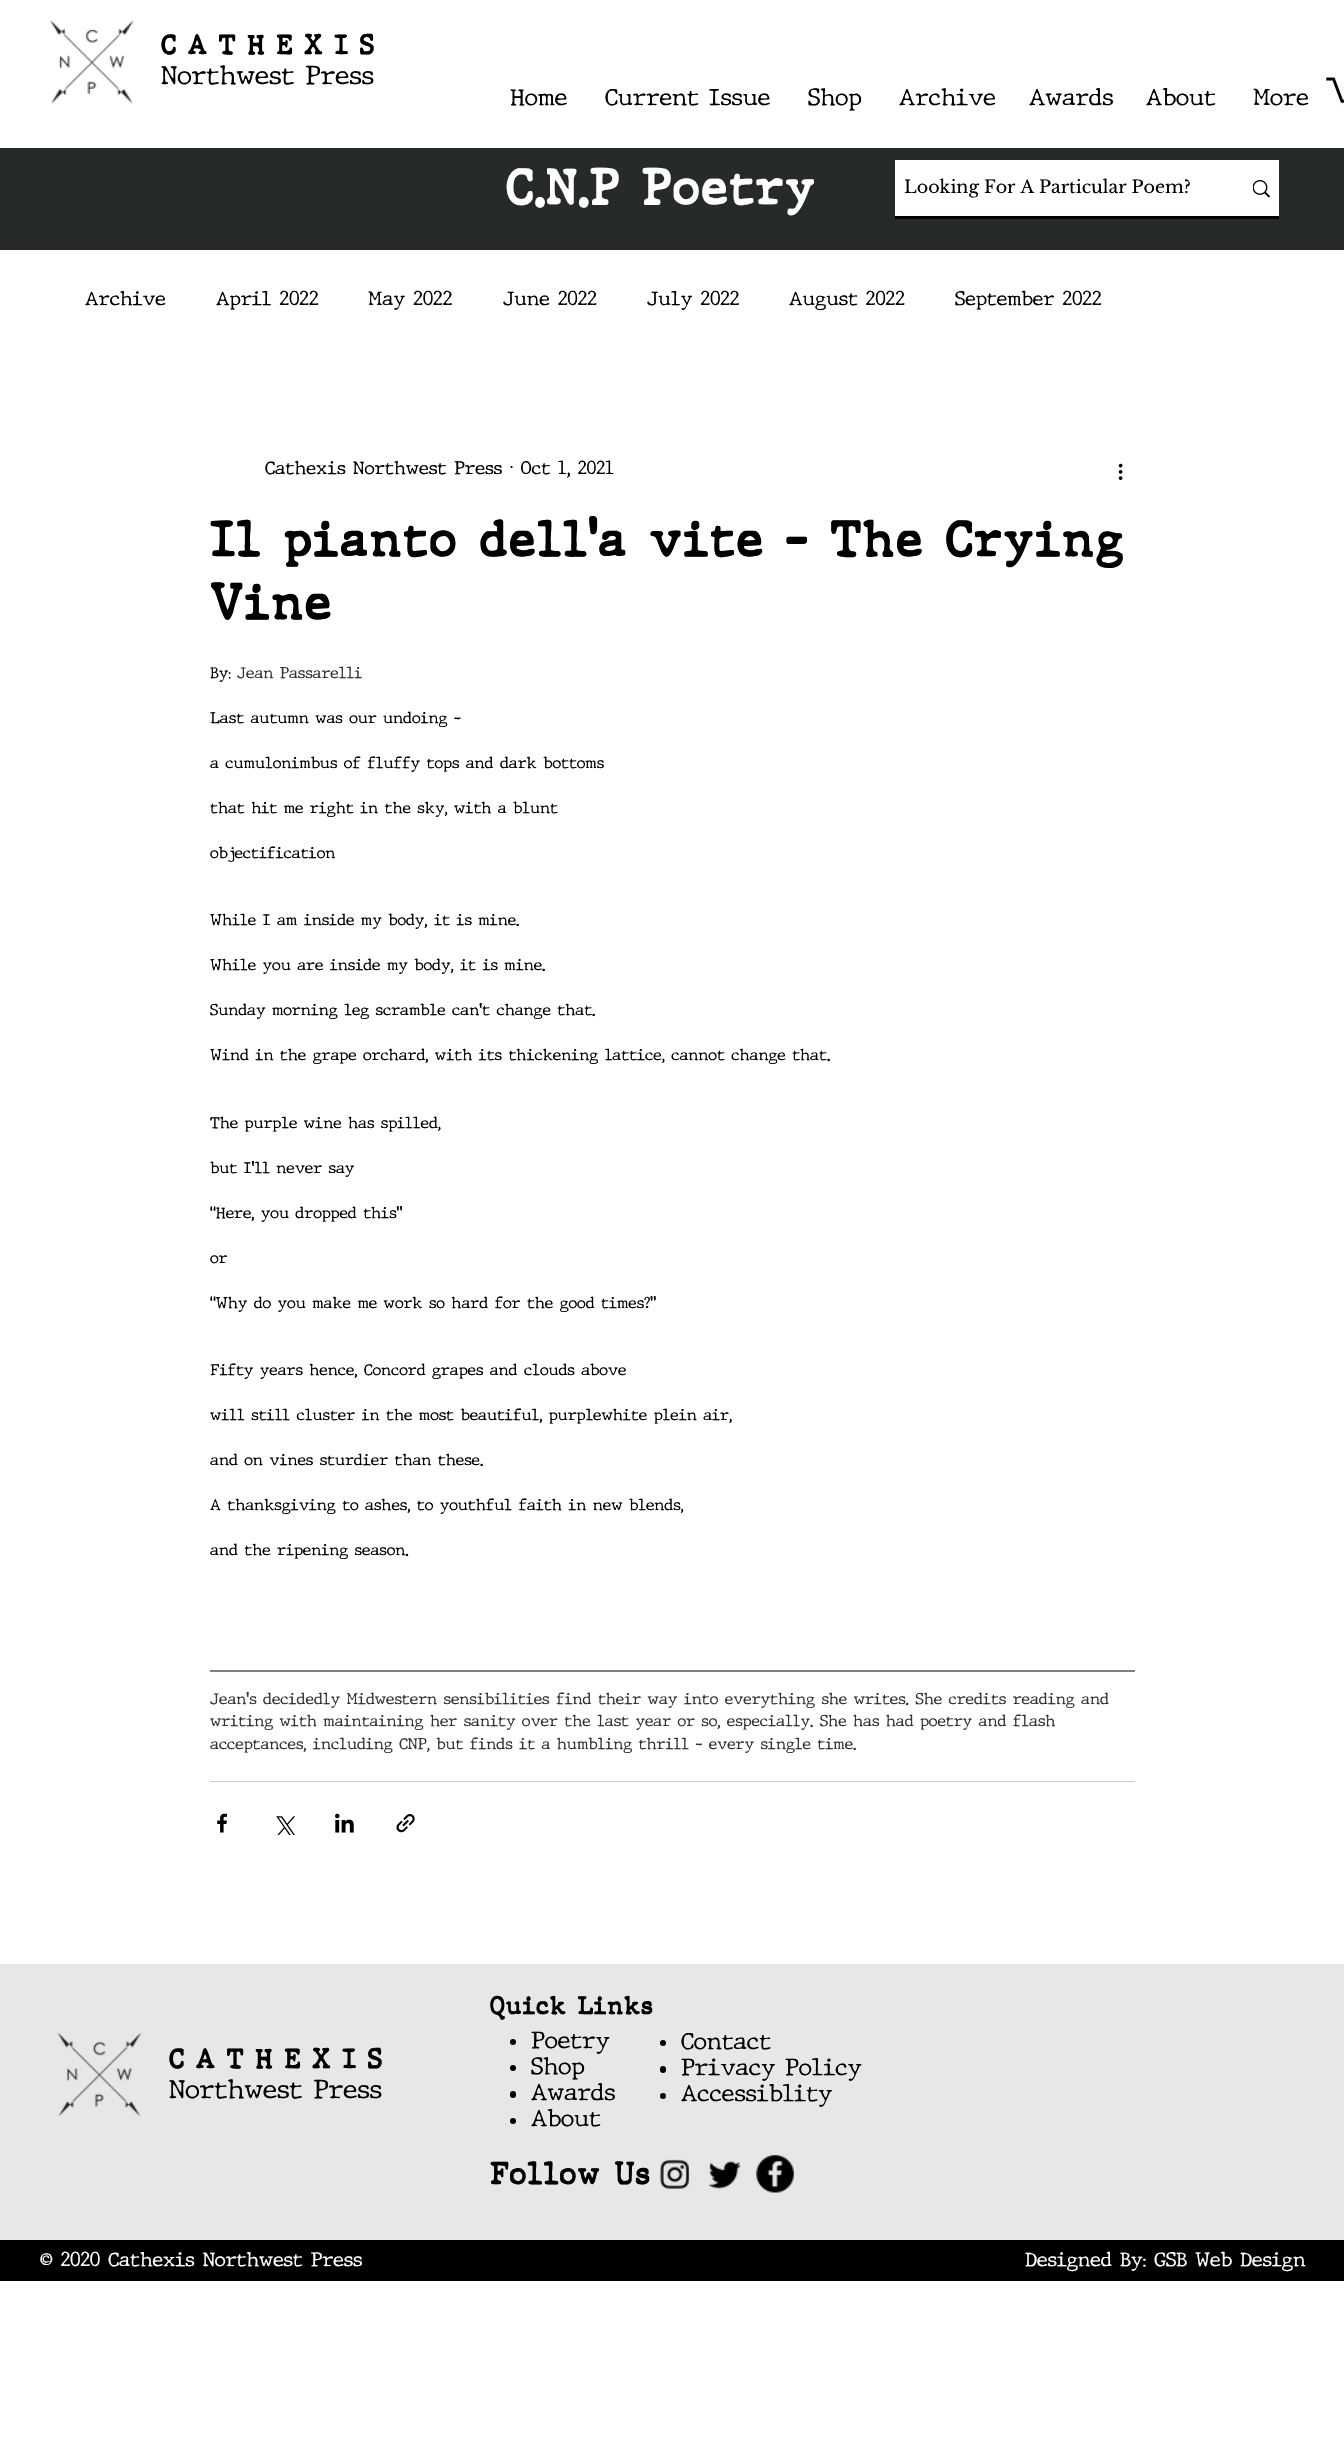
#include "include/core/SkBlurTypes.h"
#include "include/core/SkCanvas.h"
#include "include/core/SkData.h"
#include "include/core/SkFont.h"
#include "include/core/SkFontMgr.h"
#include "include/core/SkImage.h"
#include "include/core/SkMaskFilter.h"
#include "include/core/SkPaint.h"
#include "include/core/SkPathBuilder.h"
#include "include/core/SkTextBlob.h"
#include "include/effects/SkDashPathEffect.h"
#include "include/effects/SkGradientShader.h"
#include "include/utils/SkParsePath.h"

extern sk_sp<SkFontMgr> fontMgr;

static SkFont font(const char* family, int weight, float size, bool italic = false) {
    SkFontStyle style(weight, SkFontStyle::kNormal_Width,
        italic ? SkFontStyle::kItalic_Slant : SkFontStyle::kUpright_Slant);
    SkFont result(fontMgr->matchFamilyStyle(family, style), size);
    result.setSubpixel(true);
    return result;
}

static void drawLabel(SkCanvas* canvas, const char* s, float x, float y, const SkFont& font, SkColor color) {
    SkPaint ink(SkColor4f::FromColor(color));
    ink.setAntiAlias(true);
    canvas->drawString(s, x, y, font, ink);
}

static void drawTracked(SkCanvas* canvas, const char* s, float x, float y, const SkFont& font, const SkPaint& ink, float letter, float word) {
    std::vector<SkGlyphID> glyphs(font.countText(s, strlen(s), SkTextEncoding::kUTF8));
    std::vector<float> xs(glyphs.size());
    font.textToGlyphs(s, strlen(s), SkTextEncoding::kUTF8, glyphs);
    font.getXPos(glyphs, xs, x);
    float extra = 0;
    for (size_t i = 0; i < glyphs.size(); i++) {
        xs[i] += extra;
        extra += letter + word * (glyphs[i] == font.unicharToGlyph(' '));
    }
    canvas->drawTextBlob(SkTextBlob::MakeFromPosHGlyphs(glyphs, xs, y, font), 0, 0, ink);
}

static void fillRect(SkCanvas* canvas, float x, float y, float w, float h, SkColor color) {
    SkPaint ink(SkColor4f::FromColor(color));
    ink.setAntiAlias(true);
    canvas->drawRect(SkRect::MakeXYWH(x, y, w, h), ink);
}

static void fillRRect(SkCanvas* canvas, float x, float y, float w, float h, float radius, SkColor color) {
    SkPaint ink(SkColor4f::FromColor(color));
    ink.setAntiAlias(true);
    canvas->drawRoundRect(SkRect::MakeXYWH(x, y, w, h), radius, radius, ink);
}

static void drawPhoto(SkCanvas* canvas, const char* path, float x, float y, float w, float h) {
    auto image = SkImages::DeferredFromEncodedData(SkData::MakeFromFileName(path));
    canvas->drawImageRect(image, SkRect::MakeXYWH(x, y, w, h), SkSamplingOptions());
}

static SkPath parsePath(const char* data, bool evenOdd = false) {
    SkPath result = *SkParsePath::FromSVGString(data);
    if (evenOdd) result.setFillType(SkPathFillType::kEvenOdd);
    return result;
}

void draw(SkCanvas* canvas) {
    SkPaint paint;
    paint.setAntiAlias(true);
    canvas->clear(0xFFFFFFFF);
    drawPhoto(canvas, "assets/img1.png", 50, 20, 84, 84);
    SkFont font1 = font("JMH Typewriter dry", 700, 27.5f);
    paint.setColor(0xFF000000);
    drawTracked(canvas, "CATHEXIS", 161, 54, font1, paint, 11, 0);
    SkFont font2 = font("JMH Typewriter dry", 100, 25);
    drawLabel(canvas, "Northwest Press", 161, 84, font2, 0xFF000000);
    SkFont font3 = font("JMH Typewriter dry", 100, 22.5f);
    drawLabel(canvas, "Home", 510, 105, font3, 0xFF000000);
    drawLabel(canvas, "Current Issue", 605, 105, font3, 0xFF000000);
    drawLabel(canvas, "Shop", 808, 105, font3, 0xFF000000);
    drawLabel(canvas, "Archive", 899, 105, font3, 0xFF000000);
    drawLabel(canvas, "Awards", 1029, 105, font3, 0xFF000000);
    drawLabel(canvas, "About", 1146, 105, font3, 0xFF000000);
    drawLabel(canvas, "More", 1253, 105, font3, 0xFF000000);
    drawPhoto(canvas, "assets/img2.png", 1326, 77, 18, 32);
    fillRect(canvas, 0, 148, 1344, 102, 0xFF262B2A);
    SkFont font4 = font("JMH Typewriter dry", 700, 50);
    drawLabel(canvas, "C.N.P Poetry", 506, 204, font4, 0xFFFFFFFF);
    fillRect(canvas, 895, 216, 384, 3, 0xFF000000);
    fillRect(canvas, 895, 160, 384, 56, 0xFFFFFFFF);
    SkFont font5 = font("Libre Baskerville", 400, 17.5f);
    drawLabel(canvas, "Looking For A Particular Poem?", 904, 193, font5, 0xFF000000);
    drawPhoto(canvas, "assets/img3.png", 1253, 180, 17, 18);
    SkFont font6 = font("JMH Typewriter dry", 100, 18.75f);
    drawLabel(canvas, "Archive", 85, 305, font6, 0xFF000000);
    drawLabel(canvas, "April 2022", 216, 305, font6, 0xFF000000);
    drawLabel(canvas, "May 2022", 368, 305, font6, 0xFF000000);
    drawLabel(canvas, "June 2022", 503, 305, font6, 0xFF000000);
    drawLabel(canvas, "July 2022", 647, 305, font6, 0xFF000000);
    drawLabel(canvas, "August 2022", 789, 305, font6, 0xFF000000);
    drawLabel(canvas, "September 2022", 955, 305, font6, 0xFF000000);
    SkFont font7 = font("JMH Typewriter dry", 100, 17.5f);
    drawLabel(canvas, "Cathexis Northwest Press · Oct 1, 2021", 265, 474, font7, 0xFF000000);
    drawPhoto(canvas, "assets/img4.png", 1118, 463, 5, 17);
    drawLabel(canvas, "Il pianto dell’a vite – The Crying", 210, 556, font4, 0xFF000000);
    drawLabel(canvas, "Vine", 210, 619, font4, 0xFF000000);
    SkFont font8 = font("JMH Typewriter dry", 100, 15);
    drawLabel(canvas, "By:", 210, 678, font8, 0xFF000000);
    drawLabel(canvas, "Jean Passarelli", 237, 678, font8, 0xFF333333);
    drawLabel(canvas, "Last autumn was our undoing -", 210, 723, font8, 0xFF000000);
    drawLabel(canvas, "a cumulonimbus of fluffy tops and dark bottoms", 210, 768, font8, 0xFF000000);
    drawLabel(canvas, "that hit me right in the sky, with a blunt", 210, 813, font8, 0xFF000000);
    drawLabel(canvas, "objectification", 210, 858, font8, 0xFF000000);
    drawLabel(canvas, "While I am inside my body, it is mine.", 210, 925, font8, 0xFF000000);
    drawLabel(canvas, "While you are inside my body, it is mine.", 210, 970, font8, 0xFF000000);
    drawLabel(canvas, "Sunday morning leg scramble can’t change that.", 210, 1015, font8, 0xFF000000);
    drawLabel(canvas, "Wind in the grape orchard, with its thickening lattice, cannot change that.", 210, 1060, font8, 0xFF000000);
    drawLabel(canvas, "The purple wine has spilled,", 210, 1128, font8, 0xFF000000);
    drawLabel(canvas, "but I’ll never say", 210, 1173, font8, 0xFF000000);
    drawLabel(canvas, "“Here, you dropped this”", 210, 1218, font8, 0xFF000000);
    drawLabel(canvas, "or", 210, 1263, font8, 0xFF000000);
    drawLabel(canvas, "“Why do you make me work so hard for the good times?”", 210, 1308, font8, 0xFF000000);
    drawLabel(canvas, "Fifty years hence, Concord grapes and clouds above", 210, 1375, font8, 0xFF000000);
    drawLabel(canvas, "will still cluster in the most beautiful, purplewhite plein air,", 210, 1420, font8, 0xFF000000);
    drawLabel(canvas, "and on vines sturdier than these.", 210, 1465, font8, 0xFF000000);
    drawLabel(canvas, "A thanksgiving to ashes, to youthful faith in new blends,", 210, 1510, font8, 0xFF000000);
    drawLabel(canvas, "and the ripening season.", 210, 1555, font8, 0xFF000000);
    paint.setStroke(true);
    paint.setStrokeWidth(1.2f);
    canvas->drawPath(parsePath("M210 1671H1135"), paint);
    drawLabel(canvas, "Jean's decidedly Midwestern sensibilities find their way into everything she writes. She credits reading and", 210, 1704, font8, 0xFF333333);
    drawLabel(canvas, "writing with maintaining her sanity over the last year or so, especially. She has had poetry and flash", 210, 1726, font8, 0xFF333333);
    drawLabel(canvas, "acceptances, including CNP, but finds it a humbling thrill - every single time.", 210, 1749, font8, 0xFF333333);
    fillRect(canvas, 210, 1781, 925, 1, 0xFFCCCCCC);
    drawPhoto(canvas, "assets/img5.png", 217, 1813, 10, 20);
    drawPhoto(canvas, "assets/img6.png", 276, 1816, 19, 19);
    drawPhoto(canvas, "assets/img7.png", 335, 1813, 19, 20);
    drawPhoto(canvas, "assets/img8.png", 396, 1814, 19, 19);
    fillRect(canvas, 0, 1964, 1344, 276, 0xFFE8E6E6);
    drawPhoto(canvas, "assets/img9.png", 57, 2032, 85, 85);
    paint.setStroke(false);
    drawTracked(canvas, "CATHEXIS", 169, 2068, font1, paint, 11, 0);
    drawLabel(canvas, "Northwest Press", 169, 2098, font2, 0xFF000000);
    SkFont font9 = font("JMH Typewriter dry", 700, 25);
    drawLabel(canvas, "Quick Links", 490, 2014, font9, 0xFF000000);
    canvas->drawCircle(513, 2042, 3, paint);
    drawLabel(canvas, "Poetry", 531, 2048, font3, 0xFF000000);
    canvas->drawCircle(513, 2068, 3, paint);
    drawLabel(canvas, "Shop", 531, 2074, font3, 0xFF000000);
    fillRRect(canvas, 510, 2091, 6, 7, 3, 0xFF000000);
    drawLabel(canvas, "Awards", 531, 2100, font3, 0xFF000000);
    canvas->drawCircle(513, 2121, 3, paint);
    drawLabel(canvas, "About", 531, 2126, font3, 0xFF000000);
    canvas->drawCircle(663, 2043, 3, paint);
    drawLabel(canvas, "Contact", 681, 2049, font3, 0xFF000000);
    fillRRect(canvas, 660, 2066, 6, 7, 3, 0xFF000000);
    drawLabel(canvas, "Privacy Policy", 681, 2075, font3, 0xFF000000);
    canvas->drawCircle(663, 2096, 3, paint);
    drawLabel(canvas, "Accessiblity", 681, 2101, font3, 0xFF000000);
    SkFont font10 = font("JMH Typewriter dry", 700, 31.25f);
    drawLabel(canvas, "Follow Us", 490, 2184, font10, 0xFF000000);
    drawPhoto(canvas, "assets/img10.png", 659, 2159, 31, 30);
    drawPhoto(canvas, "assets/img11.png", 708, 2161, 34, 28);
    drawPhoto(canvas, "assets/img12.png", 756, 2155, 38, 38);
    fillRect(canvas, 0, 2240, 1344, 41, 0xFF000000);
    drawLabel(canvas, "© 2020 Cathexis Northwest Press", 40, 2266, font6, 0xFFFFFFFF);
    drawLabel(canvas, "Designed By: GSB Web Design", 1025, 2266, font6, 0xFFFFFFFF);
}
